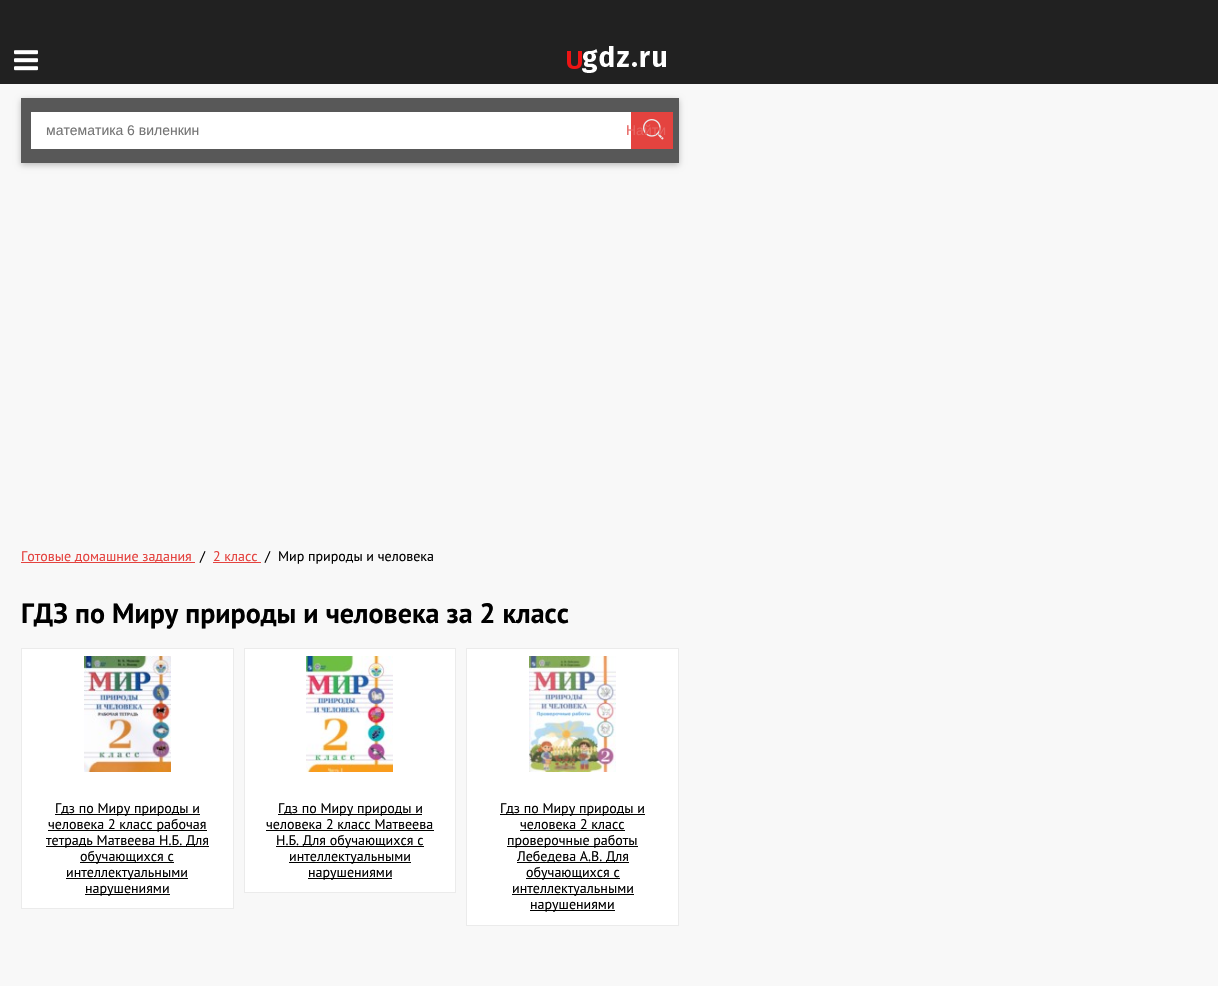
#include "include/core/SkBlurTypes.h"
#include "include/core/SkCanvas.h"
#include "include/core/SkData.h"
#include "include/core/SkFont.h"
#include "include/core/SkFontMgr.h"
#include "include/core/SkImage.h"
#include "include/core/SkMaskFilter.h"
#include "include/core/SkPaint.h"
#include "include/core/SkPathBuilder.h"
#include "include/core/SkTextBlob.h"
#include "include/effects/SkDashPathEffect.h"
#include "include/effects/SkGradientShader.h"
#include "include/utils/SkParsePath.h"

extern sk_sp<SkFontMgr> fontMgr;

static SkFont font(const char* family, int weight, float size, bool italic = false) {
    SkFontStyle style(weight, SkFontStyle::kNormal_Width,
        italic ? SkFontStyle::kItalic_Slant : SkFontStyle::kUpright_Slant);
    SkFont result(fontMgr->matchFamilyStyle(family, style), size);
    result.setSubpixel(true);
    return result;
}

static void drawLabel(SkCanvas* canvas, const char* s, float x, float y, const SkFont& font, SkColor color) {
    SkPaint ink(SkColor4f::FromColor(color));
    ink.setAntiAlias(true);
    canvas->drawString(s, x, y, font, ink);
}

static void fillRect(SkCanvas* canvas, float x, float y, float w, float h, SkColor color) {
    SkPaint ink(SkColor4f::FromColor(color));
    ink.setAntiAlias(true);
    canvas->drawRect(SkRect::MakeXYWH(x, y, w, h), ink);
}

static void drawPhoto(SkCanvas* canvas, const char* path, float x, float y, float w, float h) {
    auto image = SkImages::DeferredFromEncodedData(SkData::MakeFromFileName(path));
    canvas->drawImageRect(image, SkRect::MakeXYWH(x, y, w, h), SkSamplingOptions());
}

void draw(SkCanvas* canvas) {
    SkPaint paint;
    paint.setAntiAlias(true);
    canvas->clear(0xFF212121);
    drawPhoto(canvas, "assets/img1.png", 14, 50, 24, 21);
    drawPhoto(canvas, "assets/img2.png", 567, 46, 99, 27);
    fillRect(canvas, 0, 84, 1218, 902, 0xFFF8F8F8);
    paint.setColor(0x40000000);
    paint.setMaskFilter(SkMaskFilter::MakeBlur(kNormal_SkBlurStyle, 3));
    canvas->drawRect(SkRect::MakeXYWH(21, 100, 658, 65), paint);
    paint.setMaskFilter(nullptr);
    fillRect(canvas, 21, 98, 658, 65, 0xFF585858);
    fillRect(canvas, 631, 112, 42, 37, 0xFFE4433F);
    drawPhoto(canvas, "assets/img3.png", 643, 119, 21, 21);
    fillRect(canvas, 31, 112, 600, 37, 0xFFFFFFFF);
    SkFont font1 = font("Liberation Sans", 400, 14);
    drawLabel(canvas, "математика 6 виленкин", 46, 135, font1, 0xFF757575);
    drawLabel(canvas, "Найти", 626, 135, font1, 0xFFE76360);
    fillRect(canvas, 21, 562, 174, 1, 0xFFE4433F);
    SkFont font2 = font("PT Sans", 400, 14);
    drawLabel(canvas, "Готовые домашние задания", 21, 561, font2, 0xFFE4433F);
    drawLabel(canvas, "/", 200, 561, font2, 0xFF000000);
    drawLabel(canvas, "2 класс", 213, 561, font2, 0xFFE4433F);
    fillRect(canvas, 213, 562, 48, 1, 0xFFE4433F);
    drawLabel(canvas, "/", 265, 561, font2, 0xFF000000);
    drawLabel(canvas, "Мир природы и человека", 278, 561, font2, 0xFF000000);
    SkFont font3 = font("PT Sans", 700, 28);
    drawLabel(canvas, "ГДЗ по Миру природы и человека за 2 класс", 21, 623, font3, 0xFF000000);
    paint.setColor(0xFFFFFFFF);
    canvas->drawRect(SkRect::MakeXYWH(21.5f, 648.5f, 212, 260), paint);
    paint.setStroke(true);
    paint.setStrokeWidth(1);
    paint.setColor(0xFFEBEBEB);
    canvas->drawRect(SkRect::MakeXYWH(21.5f, 648.5f, 212, 260), paint);
    drawPhoto(canvas, "assets/img4.png", 84, 656, 87, 116);
    fillRect(canvas, 55, 814, 145, 1, 0xFF000000);
    drawLabel(canvas, "Гдз по Миру природы и", 55, 813, font2, 0xFF000000);
    fillRect(canvas, 48, 830, 159, 1, 0xFF000000);
    drawLabel(canvas, "человека 2 класс рабочая", 48, 829, font2, 0xFF000000);
    fillRect(canvas, 46, 846, 163, 1, 0xFF000000);
    drawLabel(canvas, "тетрадь Матвеева Н.Б. Для", 46, 845, font2, 0xFF000000);
    fillRect(canvas, 80, 862, 94, 1, 0xFF000000);
    drawLabel(canvas, "обучающихся с", 80, 861, font2, 0xFF000000);
    fillRect(canvas, 66, 878, 122, 1, 0xFF000000);
    drawLabel(canvas, "интеллектуальными", 66, 877, font2, 0xFF000000);
    fillRect(canvas, 85, 894, 85, 1, 0xFF000000);
    drawLabel(canvas, "нарушениями", 85, 893, font2, 0xFF000000);
    paint.setStroke(false);
    paint.setColor(0xFFFFFFFF);
    canvas->drawRect(SkRect::MakeXYWH(244.5f, 648.5f, 211, 244), paint);
    paint.setStroke(true);
    paint.setColor(0xFFEBEBEB);
    canvas->drawRect(SkRect::MakeXYWH(244.5f, 648.5f, 211, 244), paint);
    drawPhoto(canvas, "assets/img5.png", 306, 656, 87, 116);
    fillRect(canvas, 278, 814, 144, 1, 0xFF000000);
    drawLabel(canvas, "Гдз по Миру природы и", 278, 813, font2, 0xFF000000);
    drawLabel(canvas, "человека 2 класс Матвеева", 266, 829, font2, 0xFF000000);
    fillRect(canvas, 266, 830, 168, 1, 0xFF000000);
    fillRect(canvas, 276, 846, 148, 1, 0xFF000000);
    drawLabel(canvas, "Н.Б. Для обучающихся с", 276, 845, font2, 0xFF000000);
    fillRect(canvas, 289, 862, 122, 1, 0xFF000000);
    drawLabel(canvas, "интеллектуальными", 289, 861, font2, 0xFF000000);
    fillRect(canvas, 308, 878, 84, 1, 0xFF000000);
    drawLabel(canvas, "нарушениями", 308, 877, font2, 0xFF000000);
    paint.setStroke(false);
    paint.setColor(0xFFFFFFFF);
    canvas->drawRect(SkRect::MakeXYWH(466.5f, 648.5f, 212, 277), paint);
    paint.setStroke(true);
    paint.setColor(0xFFEBEBEB);
    canvas->drawRect(SkRect::MakeXYWH(466.5f, 648.5f, 212, 277), paint);
    drawPhoto(canvas, "assets/img6.png", 529, 656, 87, 116);
    fillRect(canvas, 500, 814, 145, 1, 0xFF000000);
    drawLabel(canvas, "Гдз по Миру природы и", 500, 813, font2, 0xFF000000);
    drawLabel(canvas, "человека 2 класс", 520, 829, font2, 0xFF000000);
    fillRect(canvas, 520, 830, 105, 1, 0xFF000000);
    fillRect(canvas, 507, 846, 131, 1, 0xFF000000);
    drawLabel(canvas, "проверочные работы", 507, 845, font2, 0xFF000000);
    fillRect(canvas, 517, 862, 112, 1, 0xFF000000);
    drawLabel(canvas, "Лебедева А.В. Для", 517, 861, font2, 0xFF000000);
    fillRect(canvas, 526, 878, 94, 1, 0xFF000000);
    drawLabel(canvas, "обучающихся с", 526, 877, font2, 0xFF000000);
    fillRect(canvas, 512, 894, 122, 1, 0xFF000000);
    drawLabel(canvas, "интеллектуальными", 512, 893, font2, 0xFF000000);
    fillRect(canvas, 530, 910, 85, 1, 0xFF000000);
    drawLabel(canvas, "нарушениями", 530, 909, font2, 0xFF000000);
}
